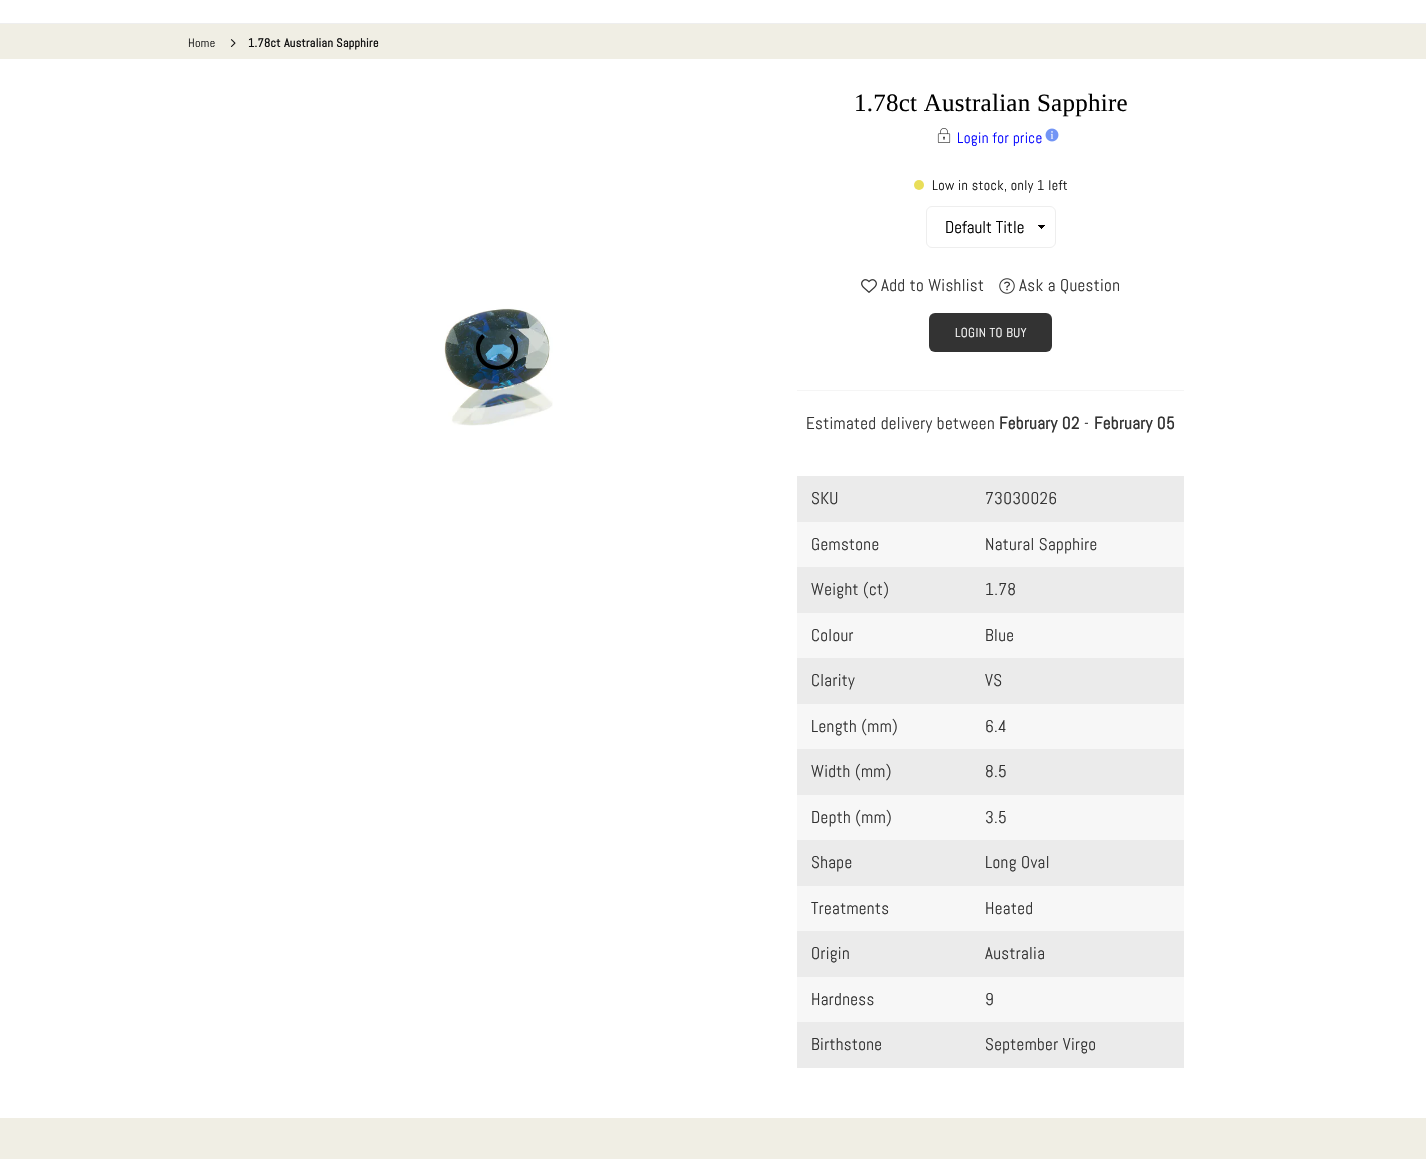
#include "include/core/SkBlurTypes.h"
#include "include/core/SkCanvas.h"
#include "include/core/SkData.h"
#include "include/core/SkFont.h"
#include "include/core/SkFontMgr.h"
#include "include/core/SkImage.h"
#include "include/core/SkMaskFilter.h"
#include "include/core/SkPaint.h"
#include "include/core/SkPathBuilder.h"
#include "include/core/SkTextBlob.h"
#include "include/effects/SkDashPathEffect.h"
#include "include/effects/SkGradientShader.h"
#include "include/utils/SkParsePath.h"

extern sk_sp<SkFontMgr> fontMgr;

static SkFont font(const char* family, int weight, float size, bool italic = false) {
    SkFontStyle style(weight, SkFontStyle::kNormal_Width,
        italic ? SkFontStyle::kItalic_Slant : SkFontStyle::kUpright_Slant);
    SkFont result(fontMgr->matchFamilyStyle(family, style), size);
    result.setSubpixel(true);
    return result;
}

static void drawLabel(SkCanvas* canvas, const char* s, float x, float y, const SkFont& font, SkColor color) {
    SkPaint ink(SkColor4f::FromColor(color));
    ink.setAntiAlias(true);
    canvas->drawString(s, x, y, font, ink);
}

static void drawTracked(SkCanvas* canvas, const char* s, float x, float y, const SkFont& font, const SkPaint& ink, float letter, float word) {
    std::vector<SkGlyphID> glyphs(font.countText(s, strlen(s), SkTextEncoding::kUTF8));
    std::vector<float> xs(glyphs.size());
    font.textToGlyphs(s, strlen(s), SkTextEncoding::kUTF8, glyphs);
    font.getXPos(glyphs, xs, x);
    float extra = 0;
    for (size_t i = 0; i < glyphs.size(); i++) {
        xs[i] += extra;
        extra += letter + word * (glyphs[i] == font.unicharToGlyph(' '));
    }
    canvas->drawTextBlob(SkTextBlob::MakeFromPosHGlyphs(glyphs, xs, y, font), 0, 0, ink);
}

static void fillRect(SkCanvas* canvas, float x, float y, float w, float h, SkColor color) {
    SkPaint ink(SkColor4f::FromColor(color));
    ink.setAntiAlias(true);
    canvas->drawRect(SkRect::MakeXYWH(x, y, w, h), ink);
}

static void fillRRect(SkCanvas* canvas, float x, float y, float w, float h, float radius, SkColor color) {
    SkPaint ink(SkColor4f::FromColor(color));
    ink.setAntiAlias(true);
    canvas->drawRoundRect(SkRect::MakeXYWH(x, y, w, h), radius, radius, ink);
}

static void drawPhoto(SkCanvas* canvas, const char* path, float x, float y, float w, float h) {
    auto image = SkImages::DeferredFromEncodedData(SkData::MakeFromFileName(path));
    canvas->drawImageRect(image, SkRect::MakeXYWH(x, y, w, h), SkSamplingOptions());
}

static SkPath parsePath(const char* data, bool evenOdd = false) {
    SkPath result = *SkParsePath::FromSVGString(data);
    if (evenOdd) result.setFillType(SkPathFillType::kEvenOdd);
    return result;
}

void draw(SkCanvas* canvas) {
    SkPaint paint;
    paint.setAntiAlias(true);
    canvas->clear(0xFFF0EEE4);
    fillRect(canvas, 0, 0, 1426, 23, 0xFFFFFFFF);
    fillRect(canvas, 0, 23, 1426, 1, 0xFFEEEEEE);
    SkFont font1 = font("Abel", 400, 12);
    paint.setColor(0xFF111111);
    drawTracked(canvas, "Home", 188, 47, font1, paint, 0.35f, 0);
    drawPhoto(canvas, "assets/img1.png", 230, 39, 6, 8);
    SkFont font2 = font("Abel", 700, 12);
    drawTracked(canvas, "1.78ct Australian Sapphire", 248, 47, font2, paint, 0.35f, 0);
    fillRect(canvas, 0, 59, 1426, 1059, 0xFFFFFFFF);
    drawPhoto(canvas, "assets/img2.png", 444, 308, 109, 118);
    paint.setStroke(true);
    paint.setStrokeWidth(4);
    paint.setColor(0xFF000000);
    canvas->drawPath(parsePath("M510.5 335.5C514 339 516 344 516 349C516 371.5 483 375 478.5 352.5C477 346.5 479 340 483.5 335.5"), paint);
    SkFont font3 = font("Liberation Serif", 400, 25);
    paint.setStroke(false);
    drawTracked(canvas, "1.78ct Australian Sapphire", 854, 111, font3, paint, 0.25f, 0);
    drawPhoto(canvas, "assets/img3.png", 937, 128, 14, 15);
    SkFont font4 = font("Abel", 400, 15);
    paint.setColor(0xFF0000FF);
    drawTracked(canvas, "Login for price", 957, 143, font4, paint, 0.35f, 0);
    drawPhoto(canvas, "assets/img4.png", 1045, 128, 14, 14);
    paint.setColor(0xFFE9DE59);
    canvas->drawCircle(919, 185, 5, paint);
    SkFont font5 = font("Abel", 400, 14);
    paint.setColor(0xFF111111);
    drawTracked(canvas, "Low in stock, only 1 left", 932, 190, font5, paint, 0.35f, 0);
    drawPhoto(canvas, "assets/img5.png", 1038, 225, 7, 4);
    paint.setStroke(true);
    paint.setStrokeWidth(1);
    paint.setColor(0xFFEEEEEE);
    canvas->drawRoundRect(SkRect::MakeXYWH(926.5f, 206.5f, 129, 41), 5.5f, 5.5f, paint);
    SkFont font6 = font("Abel", 400, 17);
    drawLabel(canvas, "Default Title", 945, 233, font6, 0xFF000000);
    drawPhoto(canvas, "assets/img6.png", 861, 279, 16, 14);
    paint.setStroke(false);
    paint.setColor(0xFF333333);
    drawTracked(canvas, "Add to Wishlist", 881, 291, font6, paint, 0.35f, 0);
    drawPhoto(canvas, "assets/img7.png", 999, 278, 16, 16);
    drawTracked(canvas, "Ask a Question", 1019, 291, font6, paint, 0.35f, 0);
    fillRRect(canvas, 929, 313, 123, 39, 6, 0xFF333333);
    SkFont font7 = font("Abel", 400, 13);
    paint.setColor(0xFFFFFFFF);
    drawTracked(canvas, "LOGIN TO BUY", 955, 337, font7, paint, 0.35f, 0);
    fillRect(canvas, 797, 390, 387, 1, 0xFFF5F5F5);
    paint.setColor(0xFF333333);
    drawTracked(canvas, "Estimated delivery between", 806, 429, font6, paint, 0.35f, 0);
    SkFont font8 = font("Abel", 700, 17);
    drawTracked(canvas, "February 02", 999, 429, font8, paint, 0.35f, 0);
    drawTracked(canvas, "-", 1084, 429, font6, paint, 0.35f, 0);
    drawTracked(canvas, "February 05", 1094, 429, font8, paint, 0.35f, 0);
    fillRect(canvas, 797, 476, 387, 46, 0xFFEBEBEB);
    drawTracked(canvas, "SKU", 811, 504, font6, paint, 0.35f, 0);
    drawTracked(canvas, "73030026", 985, 504, font6, paint, 0.35f, 0);
    fillRect(canvas, 797, 522, 387, 45, 0xFFF7F7F7);
    drawTracked(canvas, "Gemstone", 811, 550, font6, paint, 0.35f, 0);
    drawTracked(canvas, "Natural Sapphire", 985, 550, font6, paint, 0.35f, 0);
    fillRect(canvas, 797, 567, 387, 46, 0xFFEBEBEB);
    drawTracked(canvas, "Weight (ct)", 811, 595, font6, paint, 0.35f, 0);
    drawTracked(canvas, "1.78", 985, 595, font6, paint, 0.35f, 0);
    fillRect(canvas, 797, 613, 387, 45, 0xFFF7F7F7);
    drawTracked(canvas, "Colour", 811, 641, font6, paint, 0.35f, 0);
    drawTracked(canvas, "Blue", 985, 641, font6, paint, 0.35f, 0);
    fillRect(canvas, 797, 658, 387, 46, 0xFFEBEBEB);
    drawTracked(canvas, "Clarity", 811, 686, font6, paint, 0.35f, 0);
    drawTracked(canvas, "VS", 985, 686, font6, paint, 0.35f, 0);
    fillRect(canvas, 797, 704, 387, 45, 0xFFF7F7F7);
    drawTracked(canvas, "Length (mm)", 811, 732, font6, paint, 0.35f, 0);
    drawTracked(canvas, "6.4", 985, 732, font6, paint, 0.35f, 0);
    fillRect(canvas, 797, 749, 387, 46, 0xFFEBEBEB);
    drawTracked(canvas, "Width (mm)", 811, 777, font6, paint, 0.35f, 0);
    drawTracked(canvas, "8.5", 985, 777, font6, paint, 0.35f, 0);
    fillRect(canvas, 797, 795, 387, 45, 0xFFF7F7F7);
    drawTracked(canvas, "Depth (mm)", 811, 823, font6, paint, 0.35f, 0);
    drawTracked(canvas, "3.5", 985, 823, font6, paint, 0.35f, 0);
    fillRect(canvas, 797, 840, 387, 46, 0xFFEBEBEB);
    drawTracked(canvas, "Shape", 811, 868, font6, paint, 0.35f, 0);
    drawTracked(canvas, "Long Oval", 985, 868, font6, paint, 0.35f, 0);
    fillRect(canvas, 797, 886, 387, 45, 0xFFF7F7F7);
    drawTracked(canvas, "Treatments", 811, 914, font6, paint, 0.35f, 0);
    drawTracked(canvas, "Heated", 985, 914, font6, paint, 0.35f, 0);
    fillRect(canvas, 797, 931, 387, 46, 0xFFEBEBEB);
    drawTracked(canvas, "Origin", 811, 959, font6, paint, 0.35f, 0);
    drawTracked(canvas, "Australia", 985, 959, font6, paint, 0.35f, 0);
    fillRect(canvas, 797, 977, 387, 45, 0xFFF7F7F7);
    drawTracked(canvas, "Hardness", 811, 1005, font6, paint, 0.35f, 0);
    drawTracked(canvas, "9", 985, 1005, font6, paint, 0.35f, 0);
    fillRect(canvas, 797, 1022, 387, 46, 0xFFEBEBEB);
    drawTracked(canvas, "Birthstone", 811, 1050, font6, paint, 0.35f, 0);
    drawTracked(canvas, "September Virgo", 985, 1050, font6, paint, 0.35f, 0);
}
